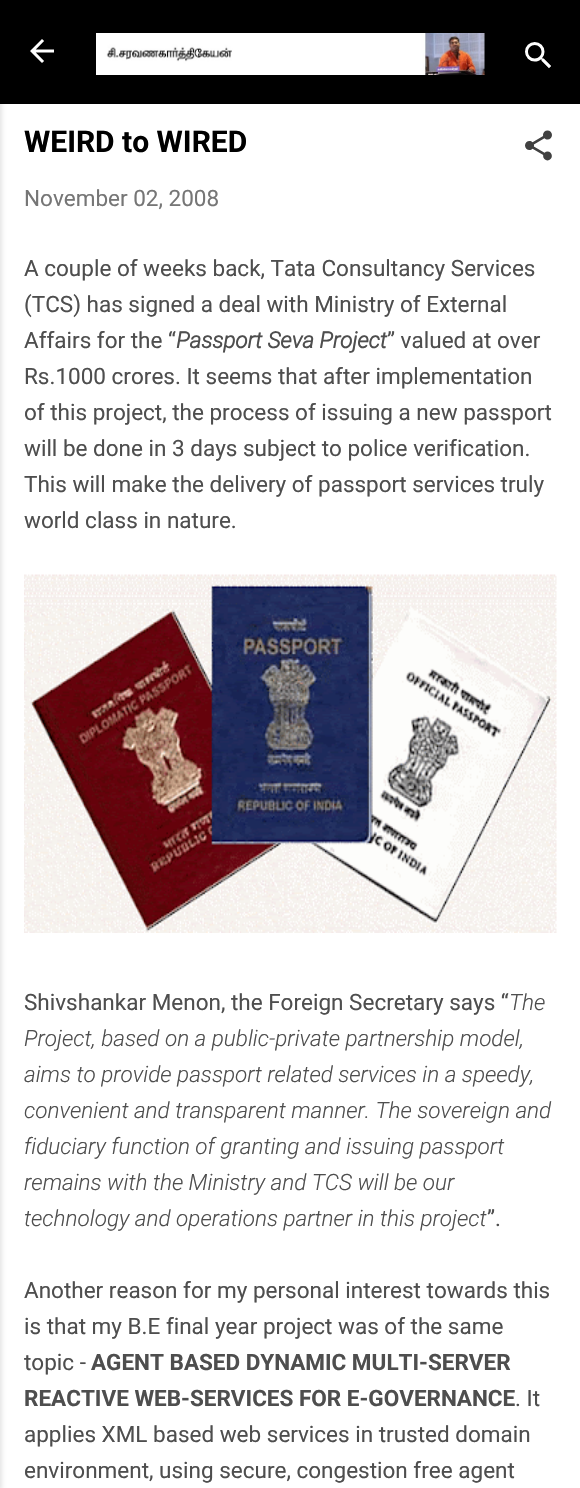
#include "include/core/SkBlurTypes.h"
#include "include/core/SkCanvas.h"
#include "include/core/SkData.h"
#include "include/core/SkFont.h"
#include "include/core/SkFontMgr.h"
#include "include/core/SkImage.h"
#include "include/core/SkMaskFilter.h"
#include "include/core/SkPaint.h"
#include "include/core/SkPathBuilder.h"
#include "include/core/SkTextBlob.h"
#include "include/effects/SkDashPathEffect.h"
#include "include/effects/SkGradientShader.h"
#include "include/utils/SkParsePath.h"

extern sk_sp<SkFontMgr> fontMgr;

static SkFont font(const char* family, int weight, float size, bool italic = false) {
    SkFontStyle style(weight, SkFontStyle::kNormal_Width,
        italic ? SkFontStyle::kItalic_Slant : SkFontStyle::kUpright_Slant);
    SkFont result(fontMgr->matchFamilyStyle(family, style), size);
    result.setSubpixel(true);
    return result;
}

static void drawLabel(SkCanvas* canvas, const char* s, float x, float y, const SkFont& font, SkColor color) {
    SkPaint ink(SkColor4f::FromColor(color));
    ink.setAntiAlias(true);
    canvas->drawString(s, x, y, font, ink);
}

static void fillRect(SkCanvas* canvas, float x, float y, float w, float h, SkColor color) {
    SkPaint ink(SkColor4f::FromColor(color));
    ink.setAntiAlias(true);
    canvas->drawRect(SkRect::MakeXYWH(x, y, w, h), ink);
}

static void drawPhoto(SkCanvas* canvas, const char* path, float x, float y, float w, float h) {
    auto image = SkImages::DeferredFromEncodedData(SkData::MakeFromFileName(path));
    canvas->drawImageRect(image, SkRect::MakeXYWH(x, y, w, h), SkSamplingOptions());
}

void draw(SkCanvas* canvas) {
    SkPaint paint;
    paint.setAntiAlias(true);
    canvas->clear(0xFF000000);
    fillRect(canvas, 0, 104, 580, 1384, 0xFFFFFFFF);
    paint.setColor(0x1A000000);
    paint.setMaskFilter(SkMaskFilter::MakeBlur(kNormal_SkBlurStyle, 2));
    canvas->drawRect(SkRect::MakeXYWH(-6, 2, 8, 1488), paint);
    paint.setMaskFilter(nullptr);
    drawPhoto(canvas, "assets/img1.png", 30, 39, 24, 24);
    drawPhoto(canvas, "assets/img2.png", 96, 33, 389, 42);
    drawPhoto(canvas, "assets/img3.png", 525, 42, 26, 27);
    SkFont font1 = font("Roboto", 700, 30);
    drawLabel(canvas, "WEIRD to WIRED", 24, 152, font1, 0xFF000000);
    drawPhoto(canvas, "assets/img4.png", 525, 130, 27, 31);
    SkFont font2 = font("Roboto", 400, 22.5f);
    drawLabel(canvas, "November 02, 2008", 24, 206, font2, 0xFF767676);
    drawLabel(canvas, "A couple of weeks back, Tata Consultancy Services", 24, 276, font2, 0xFF4E4E4E);
    drawLabel(canvas, "(TCS) has signed a deal with Ministry of External", 24, 312, font2, 0xFF4E4E4E);
    drawLabel(canvas, "Affairs for the “", 24, 348, font2, 0xFF4E4E4E);
    SkFont font3 = font("Roboto", 700, 22.5f, true);
    drawLabel(canvas, "Passport Seva Project", 176, 348, font3, 0xFF4E4E4E);
    drawLabel(canvas, "” valued at over", 387, 348, font2, 0xFF4E4E4E);
    drawLabel(canvas, "Rs.1000 crores. It seems that after implementation", 24, 384, font2, 0xFF4E4E4E);
    drawLabel(canvas, "of this project, the process of issuing a new passport", 24, 420, font2, 0xFF4E4E4E);
    drawLabel(canvas, "will be done in 3 days subject to police verification.", 24, 456, font2, 0xFF4E4E4E);
    drawLabel(canvas, "This will make the delivery of passport services truly", 24, 492, font2, 0xFF4E4E4E);
    drawLabel(canvas, "world class in nature.", 24, 528, font2, 0xFF4E4E4E);
    drawPhoto(canvas, "assets/img5.png", 24, 574, 533, 359);
    drawLabel(canvas, "Shivshankar Menon, the Foreign Secretary says “", 24, 1010, font2, 0xFF4E4E4E);
    SkFont font4 = font("Roboto", 300, 22.5f, true);
    drawLabel(canvas, "The", 509, 1010, font4, 0xFF4E4E4E);
    drawLabel(canvas, "Project, based on a public-private partnership model,", 24, 1046, font4, 0xFF4E4E4E);
    drawLabel(canvas, "aims to provide passport related services in a speedy,", 24, 1082, font4, 0xFF4E4E4E);
    drawLabel(canvas, "convenient and transparent manner. The sovereign and", 24, 1118, font4, 0xFF4E4E4E);
    drawLabel(canvas, "fiduciary function of granting and issuing passport", 24, 1154, font4, 0xFF4E4E4E);
    drawLabel(canvas, "remains with the Ministry and TCS will be our", 24, 1190, font4, 0xFF4E4E4E);
    drawLabel(canvas, "technology and operations partner in this project", 24, 1226, font4, 0xFF4E4E4E);
    drawLabel(canvas, "”.", 487, 1226, font2, 0xFF4E4E4E);
    drawLabel(canvas, "Another reason for my personal interest towards this", 24, 1298, font2, 0xFF4E4E4E);
    drawLabel(canvas, "is that my B.E final year project was of the same", 24, 1334, font2, 0xFF4E4E4E);
    drawLabel(canvas, "topic -", 24, 1370, font2, 0xFF4E4E4E);
    SkFont font5 = font("Roboto", 700, 22.5f);
    drawLabel(canvas, "AGENT BASED DYNAMIC MULTI-SERVER", 91, 1370, font5, 0xFF4E4E4E);
    drawLabel(canvas, "REACTIVE WEB-SERVICES FOR E-GOVERNANCE", 24, 1406, font5, 0xFF4E4E4E);
    drawLabel(canvas, ". It", 515, 1406, font2, 0xFF4E4E4E);
    drawLabel(canvas, "applies XML based web services in trusted domain", 24, 1442, font2, 0xFF4E4E4E);
    drawLabel(canvas, "environment, using secure, congestion free agent", 24, 1478, font2, 0xFF4E4E4E);
}
